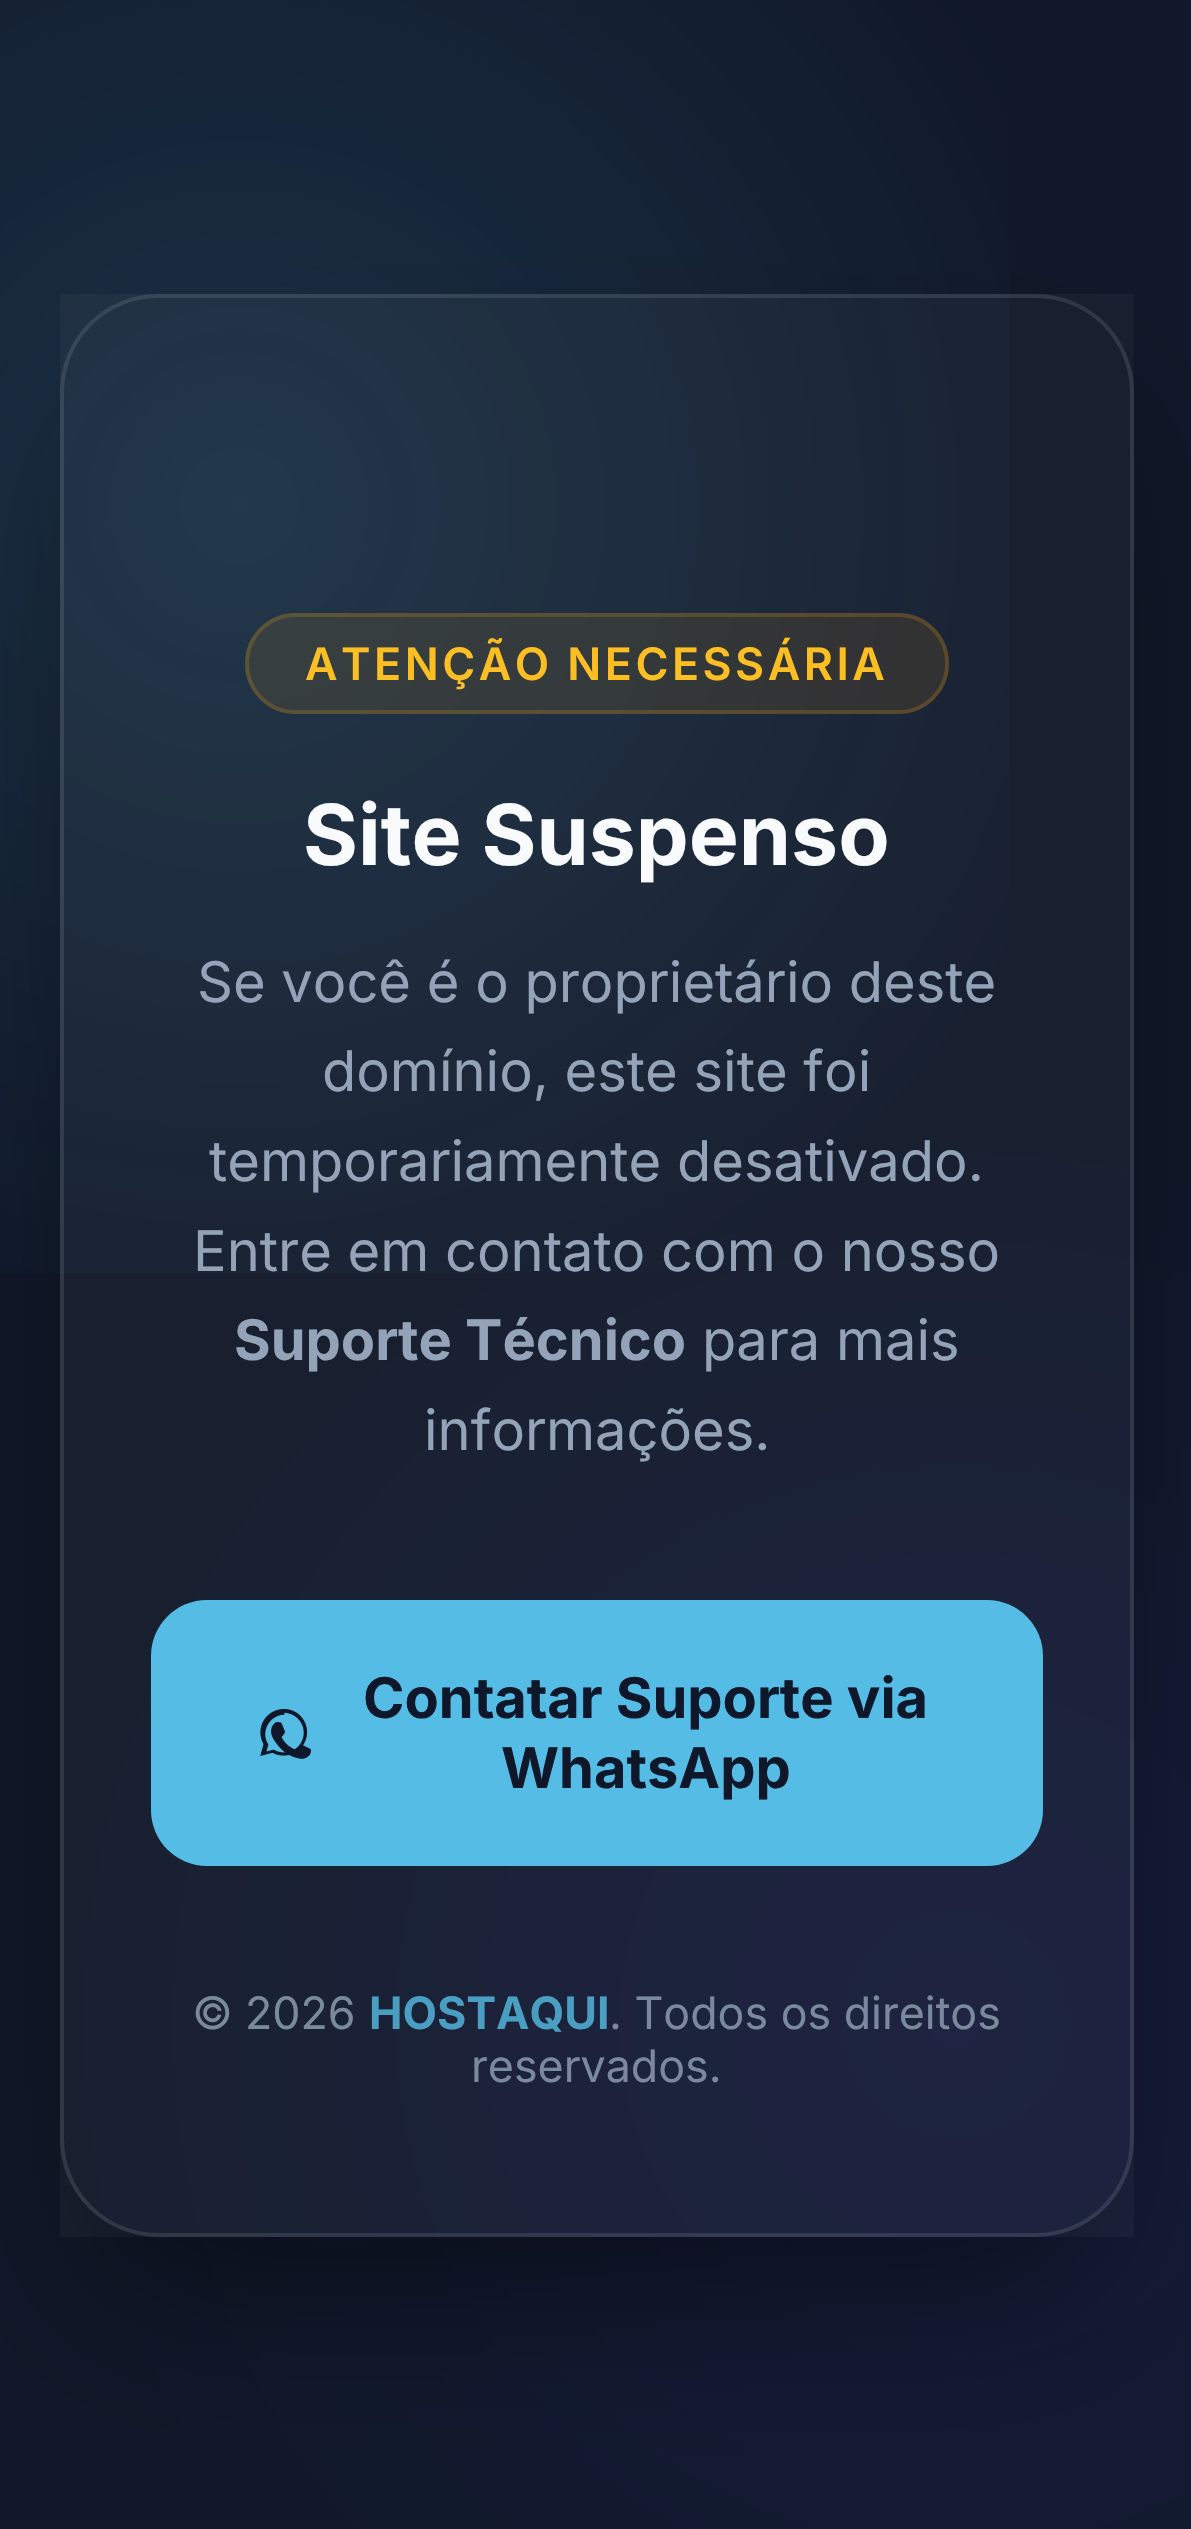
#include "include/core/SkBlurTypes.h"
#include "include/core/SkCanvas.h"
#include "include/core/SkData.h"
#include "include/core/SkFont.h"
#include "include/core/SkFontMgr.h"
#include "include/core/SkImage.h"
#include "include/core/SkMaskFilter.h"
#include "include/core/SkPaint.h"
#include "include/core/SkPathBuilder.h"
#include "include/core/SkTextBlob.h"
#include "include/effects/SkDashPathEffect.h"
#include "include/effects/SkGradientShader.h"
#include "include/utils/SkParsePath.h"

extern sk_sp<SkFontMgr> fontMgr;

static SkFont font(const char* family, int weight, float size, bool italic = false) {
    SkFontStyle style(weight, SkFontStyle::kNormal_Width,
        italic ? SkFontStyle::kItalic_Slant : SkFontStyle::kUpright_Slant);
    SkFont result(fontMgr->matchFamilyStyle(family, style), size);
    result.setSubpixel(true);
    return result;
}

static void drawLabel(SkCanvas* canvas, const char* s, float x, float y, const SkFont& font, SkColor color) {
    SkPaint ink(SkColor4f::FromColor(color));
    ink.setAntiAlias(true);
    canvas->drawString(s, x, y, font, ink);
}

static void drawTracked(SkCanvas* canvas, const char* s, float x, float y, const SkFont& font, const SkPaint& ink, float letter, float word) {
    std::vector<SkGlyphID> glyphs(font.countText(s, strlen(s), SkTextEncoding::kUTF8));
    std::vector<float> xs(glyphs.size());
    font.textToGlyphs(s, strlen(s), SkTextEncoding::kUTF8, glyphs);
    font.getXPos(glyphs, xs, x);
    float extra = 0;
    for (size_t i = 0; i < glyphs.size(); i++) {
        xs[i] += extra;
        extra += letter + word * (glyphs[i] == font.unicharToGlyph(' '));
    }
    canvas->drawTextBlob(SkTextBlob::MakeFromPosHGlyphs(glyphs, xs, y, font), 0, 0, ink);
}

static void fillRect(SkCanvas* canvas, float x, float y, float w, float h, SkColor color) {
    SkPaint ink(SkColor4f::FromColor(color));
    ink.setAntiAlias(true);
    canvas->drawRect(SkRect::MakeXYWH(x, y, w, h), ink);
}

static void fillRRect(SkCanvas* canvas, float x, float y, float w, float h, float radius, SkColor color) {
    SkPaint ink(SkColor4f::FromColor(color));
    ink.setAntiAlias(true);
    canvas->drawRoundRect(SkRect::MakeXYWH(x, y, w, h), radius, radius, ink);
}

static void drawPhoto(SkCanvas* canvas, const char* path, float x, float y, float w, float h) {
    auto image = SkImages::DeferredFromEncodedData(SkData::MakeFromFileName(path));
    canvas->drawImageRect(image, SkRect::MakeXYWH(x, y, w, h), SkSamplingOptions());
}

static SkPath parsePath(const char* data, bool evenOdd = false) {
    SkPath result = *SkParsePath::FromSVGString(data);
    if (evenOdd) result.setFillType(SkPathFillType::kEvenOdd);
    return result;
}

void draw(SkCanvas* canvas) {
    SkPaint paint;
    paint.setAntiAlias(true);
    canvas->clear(0xFFFFFFFF);
    {
        const SkColor colors[] = {0xFF161C3B, 0xFF101829};
        const float stops[] = {0, 0.4f};
        paint.setShader(SkGradientShader::MakeRadial({955, 2024}, 2238, colors, stops, 2, SkTileMode::kClamp));
        paint.setAlpha(255);
    }
    canvas->drawRect(SkRect::MakeXYWH(0, 0, 1191, 2529), paint);
    {
        const SkColor colors[] = {0x2655BDE5, 0x0055BDE5};
        const float stops[] = {0, 0.4f};
        paint.setShader(SkGradientShader::MakeRadial({239, 506}, 2238, colors, stops, 2, SkTileMode::kClamp));
        paint.setAlpha(255);
    }
    canvas->drawRect(SkRect::MakeXYWH(0, 0, 1009, 1273), paint);
    canvas->save();
    canvas->clipPath(parsePath("M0 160H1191V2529H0ZM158 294H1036C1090 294 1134 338 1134 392V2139C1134 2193 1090 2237 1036 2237H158C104 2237 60 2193 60 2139V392C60 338 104 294 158 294Z", true), true);
    paint.setShader(nullptr);
    paint.setColor(0x80000000);
    paint.setMaskFilter(SkMaskFilter::MakeBlur(kNormal_SkBlurStyle, 87.5f));
    canvas->drawRoundRect(SkRect::MakeXYWH(102, 424, 990, 1858), 56, 56, paint);
    paint.setMaskFilter(nullptr);
    canvas->restore();
    fillRect(canvas, 60, 294, 1074, 1943, 0x08FFFFFF);
    paint.setStroke(true);
    paint.setStrokeWidth(4);
    paint.setColor(0x1AFFFFFF);
    canvas->drawRoundRect(SkRect::MakeXYWH(62, 296, 1070, 1939), 96, 96, paint);
    fillRRect(canvas, 245, 613, 704, 101, 50.5f, 0x1AF59E0B);
    paint.setColor(0x33F59E0B);
    canvas->drawRoundRect(SkRect::MakeXYWH(247, 615, 700, 97), 48.5f, 48.5f, paint);
    SkFont font1 = font("Inter", 600, 44.75f);
    paint.setStroke(false);
    paint.setColor(0xFFFBBF24);
    drawTracked(canvas, "ATENÇÃO NECESSÁRIA", 305, 680, font1, paint, 3.5f, 0);
    SkFont font2 = font("Inter", 700, 84);
    drawLabel(canvas, "Site Suspenso", 303, 865, font2, 0xFFF8FAFC);
    SkFont font3 = font("Inter", 400, 56);
    drawLabel(canvas, "Se você é o proprietário deste", 197, 1002, font3, 0xFF94A3B8);
    drawLabel(canvas, "domínio, este site foi", 322, 1091, font3, 0xFF94A3B8);
    drawLabel(canvas, "temporariamente desativado.", 209, 1181, font3, 0xFF94A3B8);
    drawLabel(canvas, "Entre em contato com o nosso", 193, 1271, font3, 0xFF94A3B8);
    SkFont font4 = font("Inter", 700, 56);
    drawLabel(canvas, "Suporte Técnico", 234, 1360, font4, 0xFF94A3B8);
    drawLabel(canvas, "para mais", 702, 1360, font3, 0xFF94A3B8);
    drawLabel(canvas, "informações.", 424, 1450, font3, 0xFF94A3B8);
    fillRRect(canvas, 151, 1600, 892, 266, 56, 0xFF55BDE5);
    drawPhoto(canvas, "assets/img1.png", 260, 1709, 51, 50);
    drawLabel(canvas, "Contatar Suporte via", 363, 1718, font4, 0xFF0F172A);
    drawLabel(canvas, "WhatsApp", 501, 1788, font4, 0xFF0F172A);
    SkFont font5 = font("Inter", 400, 44.75f);
    drawLabel(canvas, "©", 192, 2029, font5, 0xFF7B899D);
    drawLabel(canvas, "2026", 245, 2029, font5, 0xFF7B899D);
    SkFont font6 = font("Inter", 700, 44.75f);
    drawLabel(canvas, "HOSTAQUI", 369, 2029, font6, 0xFF499EC2);
    drawLabel(canvas, ". Todos os direitos", 609, 2029, font5, 0xFF7B899D);
    drawLabel(canvas, "reservados.", 471, 2082, font5, 0xFF7B899D);
}
